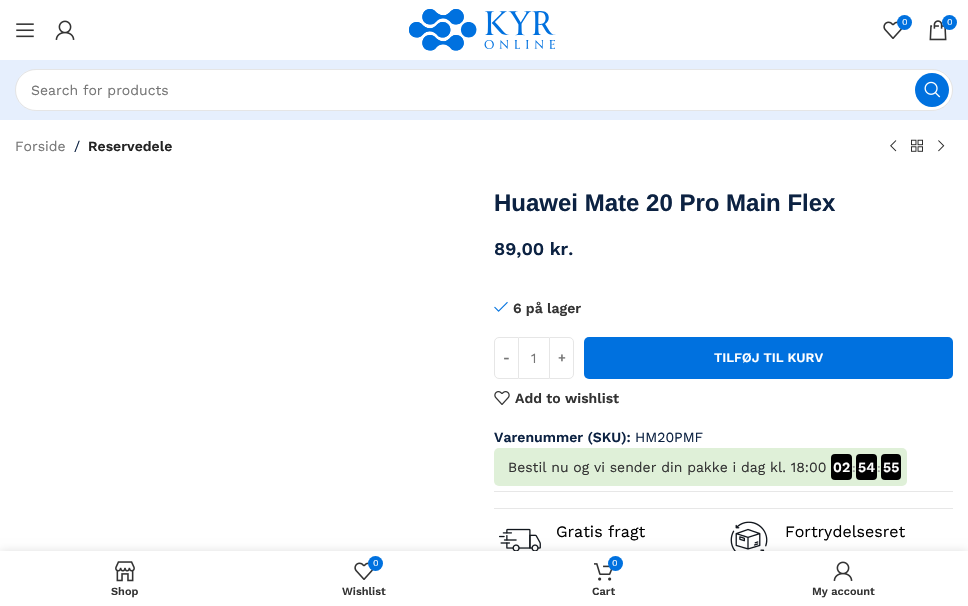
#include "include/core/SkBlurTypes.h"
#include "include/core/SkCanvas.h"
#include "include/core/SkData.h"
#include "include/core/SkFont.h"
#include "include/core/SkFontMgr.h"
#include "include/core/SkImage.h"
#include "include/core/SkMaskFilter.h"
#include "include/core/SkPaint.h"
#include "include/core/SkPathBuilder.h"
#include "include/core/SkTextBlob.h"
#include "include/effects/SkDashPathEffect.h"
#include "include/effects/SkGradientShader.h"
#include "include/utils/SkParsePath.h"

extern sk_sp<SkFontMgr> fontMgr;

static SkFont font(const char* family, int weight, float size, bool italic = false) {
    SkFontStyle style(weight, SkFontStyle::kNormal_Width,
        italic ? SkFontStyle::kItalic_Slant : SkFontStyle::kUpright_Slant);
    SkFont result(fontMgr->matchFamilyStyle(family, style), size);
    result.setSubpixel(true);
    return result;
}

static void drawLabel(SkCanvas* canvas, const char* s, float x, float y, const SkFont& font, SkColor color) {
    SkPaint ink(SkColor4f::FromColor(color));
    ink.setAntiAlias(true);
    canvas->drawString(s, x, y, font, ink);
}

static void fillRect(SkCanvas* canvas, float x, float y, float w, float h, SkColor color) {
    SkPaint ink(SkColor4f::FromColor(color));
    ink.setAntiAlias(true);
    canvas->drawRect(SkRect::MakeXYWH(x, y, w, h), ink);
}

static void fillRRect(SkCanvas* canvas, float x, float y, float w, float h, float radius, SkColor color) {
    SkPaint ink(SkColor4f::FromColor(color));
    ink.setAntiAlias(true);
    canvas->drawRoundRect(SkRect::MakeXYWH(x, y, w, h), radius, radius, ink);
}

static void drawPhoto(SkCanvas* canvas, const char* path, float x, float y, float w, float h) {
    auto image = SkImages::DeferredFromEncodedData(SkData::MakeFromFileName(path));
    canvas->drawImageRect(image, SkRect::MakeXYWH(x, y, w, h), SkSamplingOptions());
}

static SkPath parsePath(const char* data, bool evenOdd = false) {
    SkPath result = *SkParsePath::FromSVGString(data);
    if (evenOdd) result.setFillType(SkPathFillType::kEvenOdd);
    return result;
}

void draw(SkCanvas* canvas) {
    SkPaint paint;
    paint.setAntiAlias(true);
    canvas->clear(0xFFFFFFFF);
    drawPhoto(canvas, "assets/img1.png", 16, 23, 18, 15);
    drawPhoto(canvas, "assets/img2.png", 55, 20, 20, 20);
    drawPhoto(canvas, "assets/img3.png", 409, 9, 147, 42);
    drawPhoto(canvas, "assets/img4.png", 883, 21, 20, 18);
    paint.setColor(0xFF0071DF);
    canvas->drawCircle(904.5f, 22.5f, 7.5f, paint);
    SkFont font1 = font("Work Sans", 400, 9);
    drawLabel(canvas, "0", 902, 25, font1, 0xFFFFFFFF);
    drawPhoto(canvas, "assets/img5.png", 929, 20, 18, 21);
    canvas->drawCircle(949.5f, 22.5f, 7.5f, paint);
    drawLabel(canvas, "0", 947, 25, font1, 0xFFFFFFFF);
    fillRect(canvas, 0, 60, 968, 60, 0xFFE6EFFD);
    fillRRect(canvas, 15, 69, 938, 42, 21, 0xFFFFFFFF);
    paint.setStroke(true);
    paint.setStrokeWidth(1);
    paint.setColor(0x1A000000);
    canvas->drawRoundRect(SkRect::MakeXYWH(15.5f, 69.5f, 937, 41), 20.5f, 20.5f, paint);
    SkFont font2 = font("Work Sans", 400, 14);
    drawLabel(canvas, "Search for products", 31, 95, font2, 0xFF767676);
    paint.setStroke(false);
    paint.setColor(0xFF0071DF);
    canvas->drawCircle(932, 90, 17, paint);
    drawPhoto(canvas, "assets/img6.png", 924, 81, 17, 17);
    drawLabel(canvas, "Forside", 15, 151, font2, 0xFF767676);
    drawLabel(canvas, "/", 74, 151, font2, 0xFF0C2242);
    SkFont font3 = font("Work Sans", 600, 14);
    drawLabel(canvas, "Reservedele", 88, 151, font3, 0xFF242424);
    drawPhoto(canvas, "assets/img7.png", 890, 140, 7, 12);
    drawPhoto(canvas, "assets/img8.png", 911, 139, 12, 13);
    drawPhoto(canvas, "assets/img9.png", 938, 140, 7, 12);
    SkFont font4 = font("Liberation Sans", 700, 24);
    drawLabel(canvas, "Huawei Mate 20 Pro Main Flex", 494, 211, font4, 0xFF0C2242);
    SkFont font5 = font("Work Sans", 600, 18);
    drawLabel(canvas, "89,00 kr.", 494, 255, font5, 0xFF0C2242);
    drawPhoto(canvas, "assets/img10.png", 494, 301, 14, 11);
    drawLabel(canvas, "6 på lager", 513, 313, font3, 0xFF333333);
    paint.setStroke(true);
    paint.setColor(0xFFE6E6E6);
    canvas->drawPath(parsePath("M499 337.5H518.5V378.5H499C496.5 378.5 494.5 376.5 494.5 374V342C494.5 339.5 496.5 337.5 499 337.5Z"), paint);
    SkFont font6 = font("Work Sans", 600, 13);
    drawLabel(canvas, "-", 503, 362, font6, 0xFF767676);
    fillRect(canvas, 519, 337, 30, 1, 0xFFE6E6E6);
    fillRect(canvas, 519, 378, 30, 1, 0xFFE6E6E6);
    drawLabel(canvas, "1", 531, 363, font2, 0xFF767676);
    canvas->drawPath(parsePath("M549.5 337.5H569C571.5 337.5 573.5 339.5 573.5 342V374C573.5 376.5 571.5 378.5 569 378.5H549.5Z"), paint);
    drawLabel(canvas, "+", 558, 362, font6, 0xFF767676);
    fillRRect(canvas, 584, 337, 369, 42, 5, 0xFF0071DF);
    drawLabel(canvas, "TILFØJ TIL KURV", 714, 362, font6, 0xFFFFFFFF);
    paint.setColor(0xFF0071DF);
    canvas->drawPath(parsePath("M762 364C758.5 360.5 758.5 355.5 762 352"), paint);
    drawPhoto(canvas, "assets/img11.png", 494, 391, 16, 14);
    drawLabel(canvas, "Add to wishlist", 515, 403, font3, 0xFF333333);
    drawLabel(canvas, "Varenummer (SKU):", 494, 442, font3, 0xFF0C2242);
    drawLabel(canvas, "HM20PMF", 635, 442, font2, 0xFF0C2242);
    fillRRect(canvas, 494, 448, 413, 38, 5, 0xFFDFF0D8);
    drawLabel(canvas, "Bestil nu og vi sender din pakke i dag kl. 18:00", 508, 472, font2, 0xFF333333);
    fillRRect(canvas, 831, 454, 21, 26, 4, 0xFF000000);
    drawLabel(canvas, "02", 833, 472, font3, 0xFFFFFFFF);
    SkFont font7 = font("Work Sans", 600, 12);
    drawLabel(canvas, ":", 852, 472, font7, 0xFF999999);
    fillRRect(canvas, 856, 454, 21, 26, 4, 0xFF000000);
    drawLabel(canvas, "54", 858, 472, font3, 0xFFFFFFFF);
    drawLabel(canvas, ":", 877, 472, font7, 0xFF999999);
    fillRRect(canvas, 881, 454, 20, 26, 4, 0xFF000000);
    drawLabel(canvas, "55", 883, 472, font3, 0xFFFFFFFF);
    fillRect(canvas, 494, 491, 459, 1, 0xFFE7E7E7);
    fillRect(canvas, 494, 508, 459, 1, 0xFFE7E7E7);
    drawPhoto(canvas, "assets/img12.png", 499, 528, 42, 23);
    SkFont font8 = font("Work Sans", 400, 16);
    drawLabel(canvas, "Gratis fragt", 556, 537, font8, 0xFF000000);
    drawPhoto(canvas, "assets/img13.png", 730, 521, 38, 30);
    drawLabel(canvas, "Fortrydelsesret", 785, 537, font8, 0xFF000000);
    paint.setStroke(false);
    paint.setColor(0x1F000000);
    paint.setMaskFilter(SkMaskFilter::MakeBlur(kNormal_SkBlurStyle, 4.5f));
    canvas->drawRect(SkRect::MakeXYWH(0, 551, 968, 55), paint);
    paint.setMaskFilter(nullptr);
    fillRect(canvas, 0, 551, 968, 55, 0xFFFFFFFF);
    drawPhoto(canvas, "assets/img14.png", 115, 561, 20, 21);
    SkFont font9 = font("Work Sans", 600, 11);
    drawLabel(canvas, "Shop", 111, 595, font9, 0xFF333333);
    drawPhoto(canvas, "assets/img4.png", 354, 562, 20, 18);
    paint.setColor(0xFF0071DF);
    canvas->drawCircle(375.5f, 563.5f, 7.5f, paint);
    drawLabel(canvas, "0", 373, 566, font1, 0xFFFFFFFF);
    drawLabel(canvas, "Wishlist", 342, 595, font9, 0xFF333333);
    drawPhoto(canvas, "assets/img15.png", 594, 563, 19, 18);
    canvas->drawCircle(615.5f, 563.5f, 7.5f, paint);
    drawLabel(canvas, "0", 612, 566, font1, 0xFFFFFFFF);
    drawLabel(canvas, "Cart", 592, 595, font9, 0xFF333333);
    drawPhoto(canvas, "assets/img2.png", 833, 561, 20, 20);
    drawLabel(canvas, "My account", 812, 595, font9, 0xFF333333);
}
